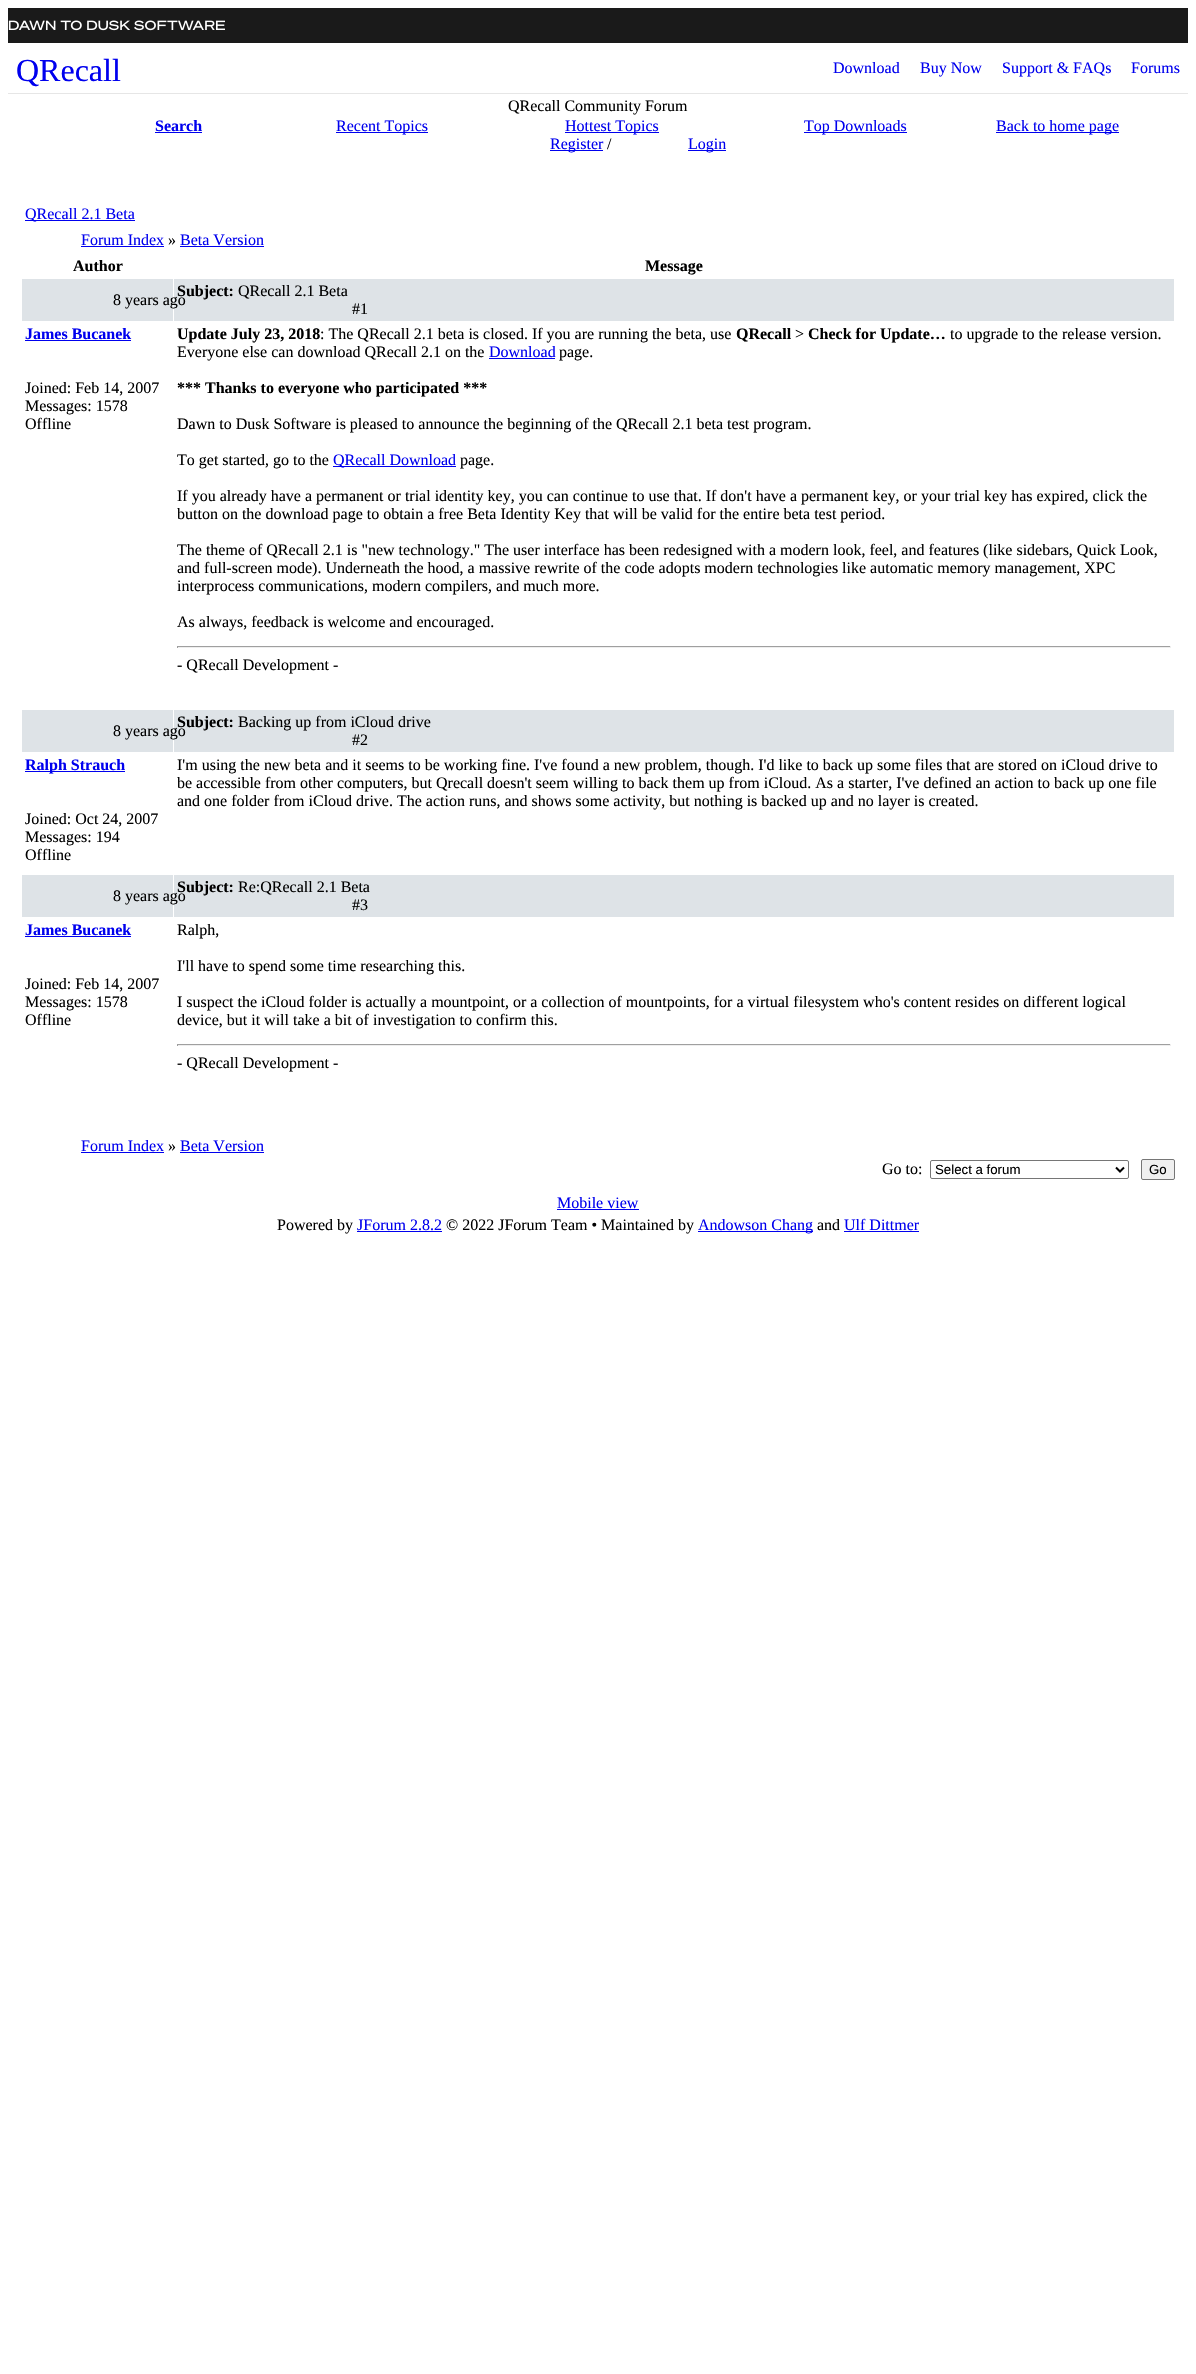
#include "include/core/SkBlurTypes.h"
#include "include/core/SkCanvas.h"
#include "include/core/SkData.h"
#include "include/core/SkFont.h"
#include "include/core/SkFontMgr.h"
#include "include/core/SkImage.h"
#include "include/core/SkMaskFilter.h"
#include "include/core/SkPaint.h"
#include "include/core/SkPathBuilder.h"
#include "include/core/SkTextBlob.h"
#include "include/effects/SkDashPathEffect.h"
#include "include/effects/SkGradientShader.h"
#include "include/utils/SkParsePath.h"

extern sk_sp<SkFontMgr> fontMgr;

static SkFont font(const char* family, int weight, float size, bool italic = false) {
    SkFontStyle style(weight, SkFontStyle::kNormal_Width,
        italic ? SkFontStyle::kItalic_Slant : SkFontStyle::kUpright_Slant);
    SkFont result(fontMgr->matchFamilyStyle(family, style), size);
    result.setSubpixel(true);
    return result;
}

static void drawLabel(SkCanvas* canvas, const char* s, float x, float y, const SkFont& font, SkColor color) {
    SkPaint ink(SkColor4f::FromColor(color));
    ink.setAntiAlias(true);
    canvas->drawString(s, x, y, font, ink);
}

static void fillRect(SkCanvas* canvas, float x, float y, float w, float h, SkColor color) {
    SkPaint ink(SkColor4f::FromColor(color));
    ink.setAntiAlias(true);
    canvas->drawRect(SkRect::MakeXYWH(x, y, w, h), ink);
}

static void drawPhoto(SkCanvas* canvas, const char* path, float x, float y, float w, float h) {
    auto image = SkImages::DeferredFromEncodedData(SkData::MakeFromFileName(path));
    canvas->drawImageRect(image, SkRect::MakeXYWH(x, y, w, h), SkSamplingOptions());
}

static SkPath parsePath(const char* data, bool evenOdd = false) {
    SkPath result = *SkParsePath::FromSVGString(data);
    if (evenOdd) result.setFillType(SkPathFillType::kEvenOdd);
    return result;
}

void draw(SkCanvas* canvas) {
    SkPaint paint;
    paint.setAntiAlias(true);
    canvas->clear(0xFFFFFFFF);
    fillRect(canvas, 8, 8, 1180, 35, 0xFF1A1A1A);
    drawPhoto(canvas, "assets/img1.png", 8, 20, 217, 11);
    fillRect(canvas, 8, 93, 1180, 1, 0xFFE6E6E6);
    SkFont font1 = font("Liberation Serif", 400, 32);
    drawLabel(canvas, "QRecall", 16, 81, font1, 0xFF0000EE);
    SkFont font2 = font("Liberation Serif", 400, 16);
    drawLabel(canvas, "Download", 833, 73, font2, 0xFF0000EE);
    drawLabel(canvas, "Buy Now", 920, 73, font2, 0xFF0000EE);
    drawLabel(canvas, "Support & FAQs", 1002, 73, font2, 0xFF0000EE);
    drawLabel(canvas, "Forums", 1131, 73, font2, 0xFF0000EE);
    drawLabel(canvas, "QRecall Community Forum", 508, 111, font2, 0xFF000000);
    SkFont font3 = font("Liberation Serif", 700, 16);
    drawLabel(canvas, "Search", 155, 131, font3, 0xFF0000EE);
    fillRect(canvas, 155, 132, 47, 1, 0xFF0000EE);
    fillRect(canvas, 336, 132, 92, 1, 0xFF0000EE);
    drawLabel(canvas, "Recent Topics", 336, 131, font2, 0xFF0000EE);
    fillRect(canvas, 565, 132, 94, 1, 0xFF0000EE);
    drawLabel(canvas, "Hottest Topics", 565, 131, font2, 0xFF0000EE);
    fillRect(canvas, 804, 132, 103, 1, 0xFF0000EE);
    drawLabel(canvas, "Top Downloads", 804, 131, font2, 0xFF0000EE);
    fillRect(canvas, 996, 132, 123, 1, 0xFF0000EE);
    drawLabel(canvas, "Back to home page", 996, 131, font2, 0xFF0000EE);
    fillRect(canvas, 550, 150, 53, 1, 0xFF0000EE);
    drawLabel(canvas, "Register", 550, 149, font2, 0xFF0000EE);
    drawLabel(canvas, "/", 607, 149, font2, 0xFF000000);
    fillRect(canvas, 688, 150, 38, 1, 0xFF0000EE);
    drawLabel(canvas, "Login", 688, 149, font2, 0xFF0000EE);
    fillRect(canvas, 25, 220, 110, 1, 0xFF0000EE);
    drawLabel(canvas, "QRecall 2.1 Beta", 25, 219, font2, 0xFF0000EE);
    drawLabel(canvas, "Forum Index", 81, 245, font2, 0xFF0000EE);
    fillRect(canvas, 81, 246, 83, 1, 0xFF0000EE);
    drawLabel(canvas, "»", 168, 245, font2, 0xFF000000);
    drawLabel(canvas, "Beta Version", 180, 245, font2, 0xFF0000EE);
    fillRect(canvas, 180, 246, 84, 1, 0xFF0000EE);
    drawLabel(canvas, "Author", 73, 271, font3, 0xFF000000);
    drawLabel(canvas, "Message", 645, 271, font3, 0xFF000000);
    fillRect(canvas, 22, 279, 151, 42, 0xFFDEE3E7);
    fillRect(canvas, 174, 279, 1000, 42, 0xFFDEE3E7);
    drawLabel(canvas, "8 years ago", 113, 305, font2, 0xFF000000);
    drawLabel(canvas, "Subject:", 177, 296, font3, 0xFF000000);
    drawLabel(canvas, "QRecall 2.1 Beta", 238, 296, font2, 0xFF000000);
    drawLabel(canvas, "#1", 352, 314, font2, 0xFF000000);
    drawLabel(canvas, "James Bucanek", 25, 339, font3, 0xFF0000EE);
    fillRect(canvas, 25, 340, 106, 1, 0xFF0000EE);
    drawLabel(canvas, "Joined: Feb 14, 2007", 25, 393, font2, 0xFF000000);
    drawLabel(canvas, "Messages: 1578", 25, 411, font2, 0xFF000000);
    drawLabel(canvas, "Offline", 25, 429, font2, 0xFF000000);
    drawLabel(canvas, "Update July 23, 2018", 177, 339, font3, 0xFF000000);
    drawLabel(canvas, ": The QRecall 2.1 beta is closed. If you are running the beta, use", 320, 339, font2, 0xFF000000);
    drawLabel(canvas, "QRecall", 736, 339, font3, 0xFF000000);
    drawLabel(canvas, ">", 795, 339, font2, 0xFF000000);
    drawLabel(canvas, "Check for Update…", 808, 339, font3, 0xFF000000);
    drawLabel(canvas, "to upgrade to the release version.", 950, 339, font2, 0xFF000000);
    drawLabel(canvas, "Everyone else can download QRecall 2.1 on the", 177, 357, font2, 0xFF000000);
    drawLabel(canvas, "Download", 489, 357, font2, 0xFF0000EE);
    fillRect(canvas, 489, 358, 66, 1, 0xFF0000EE);
    drawLabel(canvas, "page.", 559, 357, font2, 0xFF000000);
    drawLabel(canvas, "*** Thanks to everyone who participated ***", 177, 393, font3, 0xFF000000);
    drawLabel(canvas, "Dawn to Dusk Software is pleased to announce the beginning of the QRecall 2.1 beta test program.", 177, 429, font2, 0xFF000000);
    drawLabel(canvas, "To get started, go to the", 177, 465, font2, 0xFF000000);
    fillRect(canvas, 333, 466, 123, 1, 0xFF0000EE);
    drawLabel(canvas, "QRecall Download", 333, 465, font2, 0xFF0000EE);
    drawLabel(canvas, "page.", 460, 465, font2, 0xFF000000);
    drawLabel(canvas, "If you already have a permanent or trial identity key, you can continue to use that. If don't have a permanent key, or your trial key has expired, click the", 177, 501, font2, 0xFF000000);
    drawLabel(canvas, "button on the download page to obtain a free Beta Identity Key that will be valid for the entire beta test period.", 177, 519, font2, 0xFF000000);
    drawLabel(canvas, "The theme of QRecall 2.1 is \"new technology.\" The user interface has been redesigned with a modern look, feel, and features (like sidebars, Quick Look,", 177, 555, font2, 0xFF000000);
    drawLabel(canvas, "and full-screen mode). Underneath the hood, a massive rewrite of the code adopts modern technologies like automatic memory management, XPC", 177, 573, font2, 0xFF000000);
    drawLabel(canvas, "interprocess communications, modern compilers, and much more.", 177, 591, font2, 0xFF000000);
    drawLabel(canvas, "As always, feedback is welcome and encouraged.", 177, 627, font2, 0xFF000000);
    fillRect(canvas, 177, 646, 994, 1, 0xFF9F9F9F);
    fillRect(canvas, 1170, 646, 1, 2, 0xFFEEEEEE);
    fillRect(canvas, 177, 647, 994, 1, 0xFFEEEEEE);
    fillRect(canvas, 177, 646, 1, 2, 0xFF9F9F9F);
    drawLabel(canvas, "- QRecall Development -", 177, 670, font2, 0xFF000000);
    fillRect(canvas, 22, 710, 151, 42, 0xFFDEE3E7);
    fillRect(canvas, 174, 710, 1000, 42, 0xFFDEE3E7);
    drawLabel(canvas, "8 years ago", 113, 736, font2, 0xFF000000);
    drawLabel(canvas, "Subject:", 177, 727, font3, 0xFF000000);
    drawLabel(canvas, "Backing up from iCloud drive", 238, 727, font2, 0xFF000000);
    drawLabel(canvas, "#2", 352, 745, font2, 0xFF000000);
    fillRect(canvas, 25, 771, 100, 1, 0xFF0000EE);
    drawLabel(canvas, "Ralph Strauch", 25, 770, font3, 0xFF0000EE);
    drawLabel(canvas, "Joined: Oct 24, 2007", 25, 824, font2, 0xFF000000);
    drawLabel(canvas, "Messages: 194", 25, 842, font2, 0xFF000000);
    drawLabel(canvas, "Offline", 25, 860, font2, 0xFF000000);
    drawLabel(canvas, "I'm using the new beta and it seems to be working fine. I've found a new problem, though. I'd like to back up some files that are stored on iCloud drive to", 177, 770, font2, 0xFF000000);
    drawLabel(canvas, "be accessible from other computers, but Qrecall doesn't seem willing to back them up from iCloud. As a starter, I've defined an action to back up one file", 177, 788, font2, 0xFF000000);
    drawLabel(canvas, "and one folder from iCloud drive. The action runs, and shows some activity, but nothing is backed up and no layer is created.", 177, 806, font2, 0xFF000000);
    fillRect(canvas, 22, 875, 151, 42, 0xFFDEE3E7);
    fillRect(canvas, 174, 875, 1000, 42, 0xFFDEE3E7);
    drawLabel(canvas, "8 years ago", 113, 901, font2, 0xFF000000);
    drawLabel(canvas, "Subject:", 177, 892, font3, 0xFF000000);
    drawLabel(canvas, "Re:QRecall 2.1 Beta", 238, 892, font2, 0xFF000000);
    drawLabel(canvas, "#3", 352, 910, font2, 0xFF000000);
    drawLabel(canvas, "James Bucanek", 25, 935, font3, 0xFF0000EE);
    fillRect(canvas, 25, 936, 106, 1, 0xFF0000EE);
    drawLabel(canvas, "Joined: Feb 14, 2007", 25, 989, font2, 0xFF000000);
    drawLabel(canvas, "Messages: 1578", 25, 1007, font2, 0xFF000000);
    drawLabel(canvas, "Offline", 25, 1025, font2, 0xFF000000);
    drawLabel(canvas, "Ralph,", 177, 935, font2, 0xFF000000);
    drawLabel(canvas, "I'll have to spend some time researching this.", 177, 971, font2, 0xFF000000);
    drawLabel(canvas, "I suspect the iCloud folder is actually a mountpoint, or a collection of mountpoints, for a virtual filesystem who's content resides on different logical", 177, 1007, font2, 0xFF000000);
    drawLabel(canvas, "device, but it will take a bit of investigation to confirm this.", 177, 1025, font2, 0xFF000000);
    fillRect(canvas, 177, 1044, 994, 1, 0xFF9F9F9F);
    fillRect(canvas, 1170, 1044, 1, 2, 0xFFEEEEEE);
    fillRect(canvas, 177, 1045, 994, 1, 0xFFEEEEEE);
    fillRect(canvas, 177, 1044, 1, 2, 0xFF9F9F9F);
    drawLabel(canvas, "- QRecall Development -", 177, 1068, font2, 0xFF000000);
    drawLabel(canvas, "Forum Index", 81, 1151, font2, 0xFF0000EE);
    fillRect(canvas, 81, 1152, 83, 1, 0xFF0000EE);
    drawLabel(canvas, "»", 168, 1151, font2, 0xFF000000);
    drawLabel(canvas, "Beta Version", 180, 1151, font2, 0xFF0000EE);
    fillRect(canvas, 180, 1152, 84, 1, 0xFF0000EE);
    drawLabel(canvas, "Go to:", 882, 1174, font2, 0xFF000000);
    paint.setStroke(true);
    paint.setStrokeWidth(1);
    paint.setColor(0xFF767676);
    canvas->drawRoundRect(SkRect::MakeXYWH(930.5f, 1160.5f, 198, 18), 1.5f, 1.5f, paint);
    paint.setStrokeWidth(2);
    paint.setColor(0xFF000000);
    canvas->drawPath(parsePath("M1116 1167.5L1120 1171.5L1124 1167.5"), paint);
    SkFont font4 = font("Liberation Sans", 400, 13.25f);
    drawLabel(canvas, "Select a forum", 935, 1174, font4, 0xFF000000);
    paint.setStroke(false);
    paint.setColor(0xFFEFEFEF);
    canvas->drawRoundRect(SkRect::MakeXYWH(1141.5f, 1159.5f, 33, 20), 1.5f, 1.5f, paint);
    paint.setStroke(true);
    paint.setStrokeWidth(1);
    paint.setColor(0xFF767676);
    canvas->drawRoundRect(SkRect::MakeXYWH(1141.5f, 1159.5f, 33, 20), 1.5f, 1.5f, paint);
    drawLabel(canvas, "Go", 1149, 1174, font4, 0xFF000000);
    drawLabel(canvas, "Mobile view", 557, 1208, font2, 0xFF0000EE);
    fillRect(canvas, 557, 1209, 82, 1, 0xFF0000EE);
    drawLabel(canvas, "Powered by", 277, 1230, font2, 0xFF000000);
    drawLabel(canvas, "JForum 2.8.2", 357, 1230, font2, 0xFF0000EE);
    fillRect(canvas, 357, 1231, 85, 1, 0xFF0000EE);
    drawLabel(canvas, "© 2022 JForum Team • Maintained by", 446, 1230, font2, 0xFF000000);
    fillRect(canvas, 698, 1231, 115, 1, 0xFF0000EE);
    drawLabel(canvas, "Andowson Chang", 698, 1230, font2, 0xFF0000EE);
    drawLabel(canvas, "and", 817, 1230, font2, 0xFF000000);
    drawLabel(canvas, "Ulf Dittmer", 844, 1230, font2, 0xFF0000EE);
    fillRect(canvas, 844, 1231, 75, 1, 0xFF0000EE);
}
